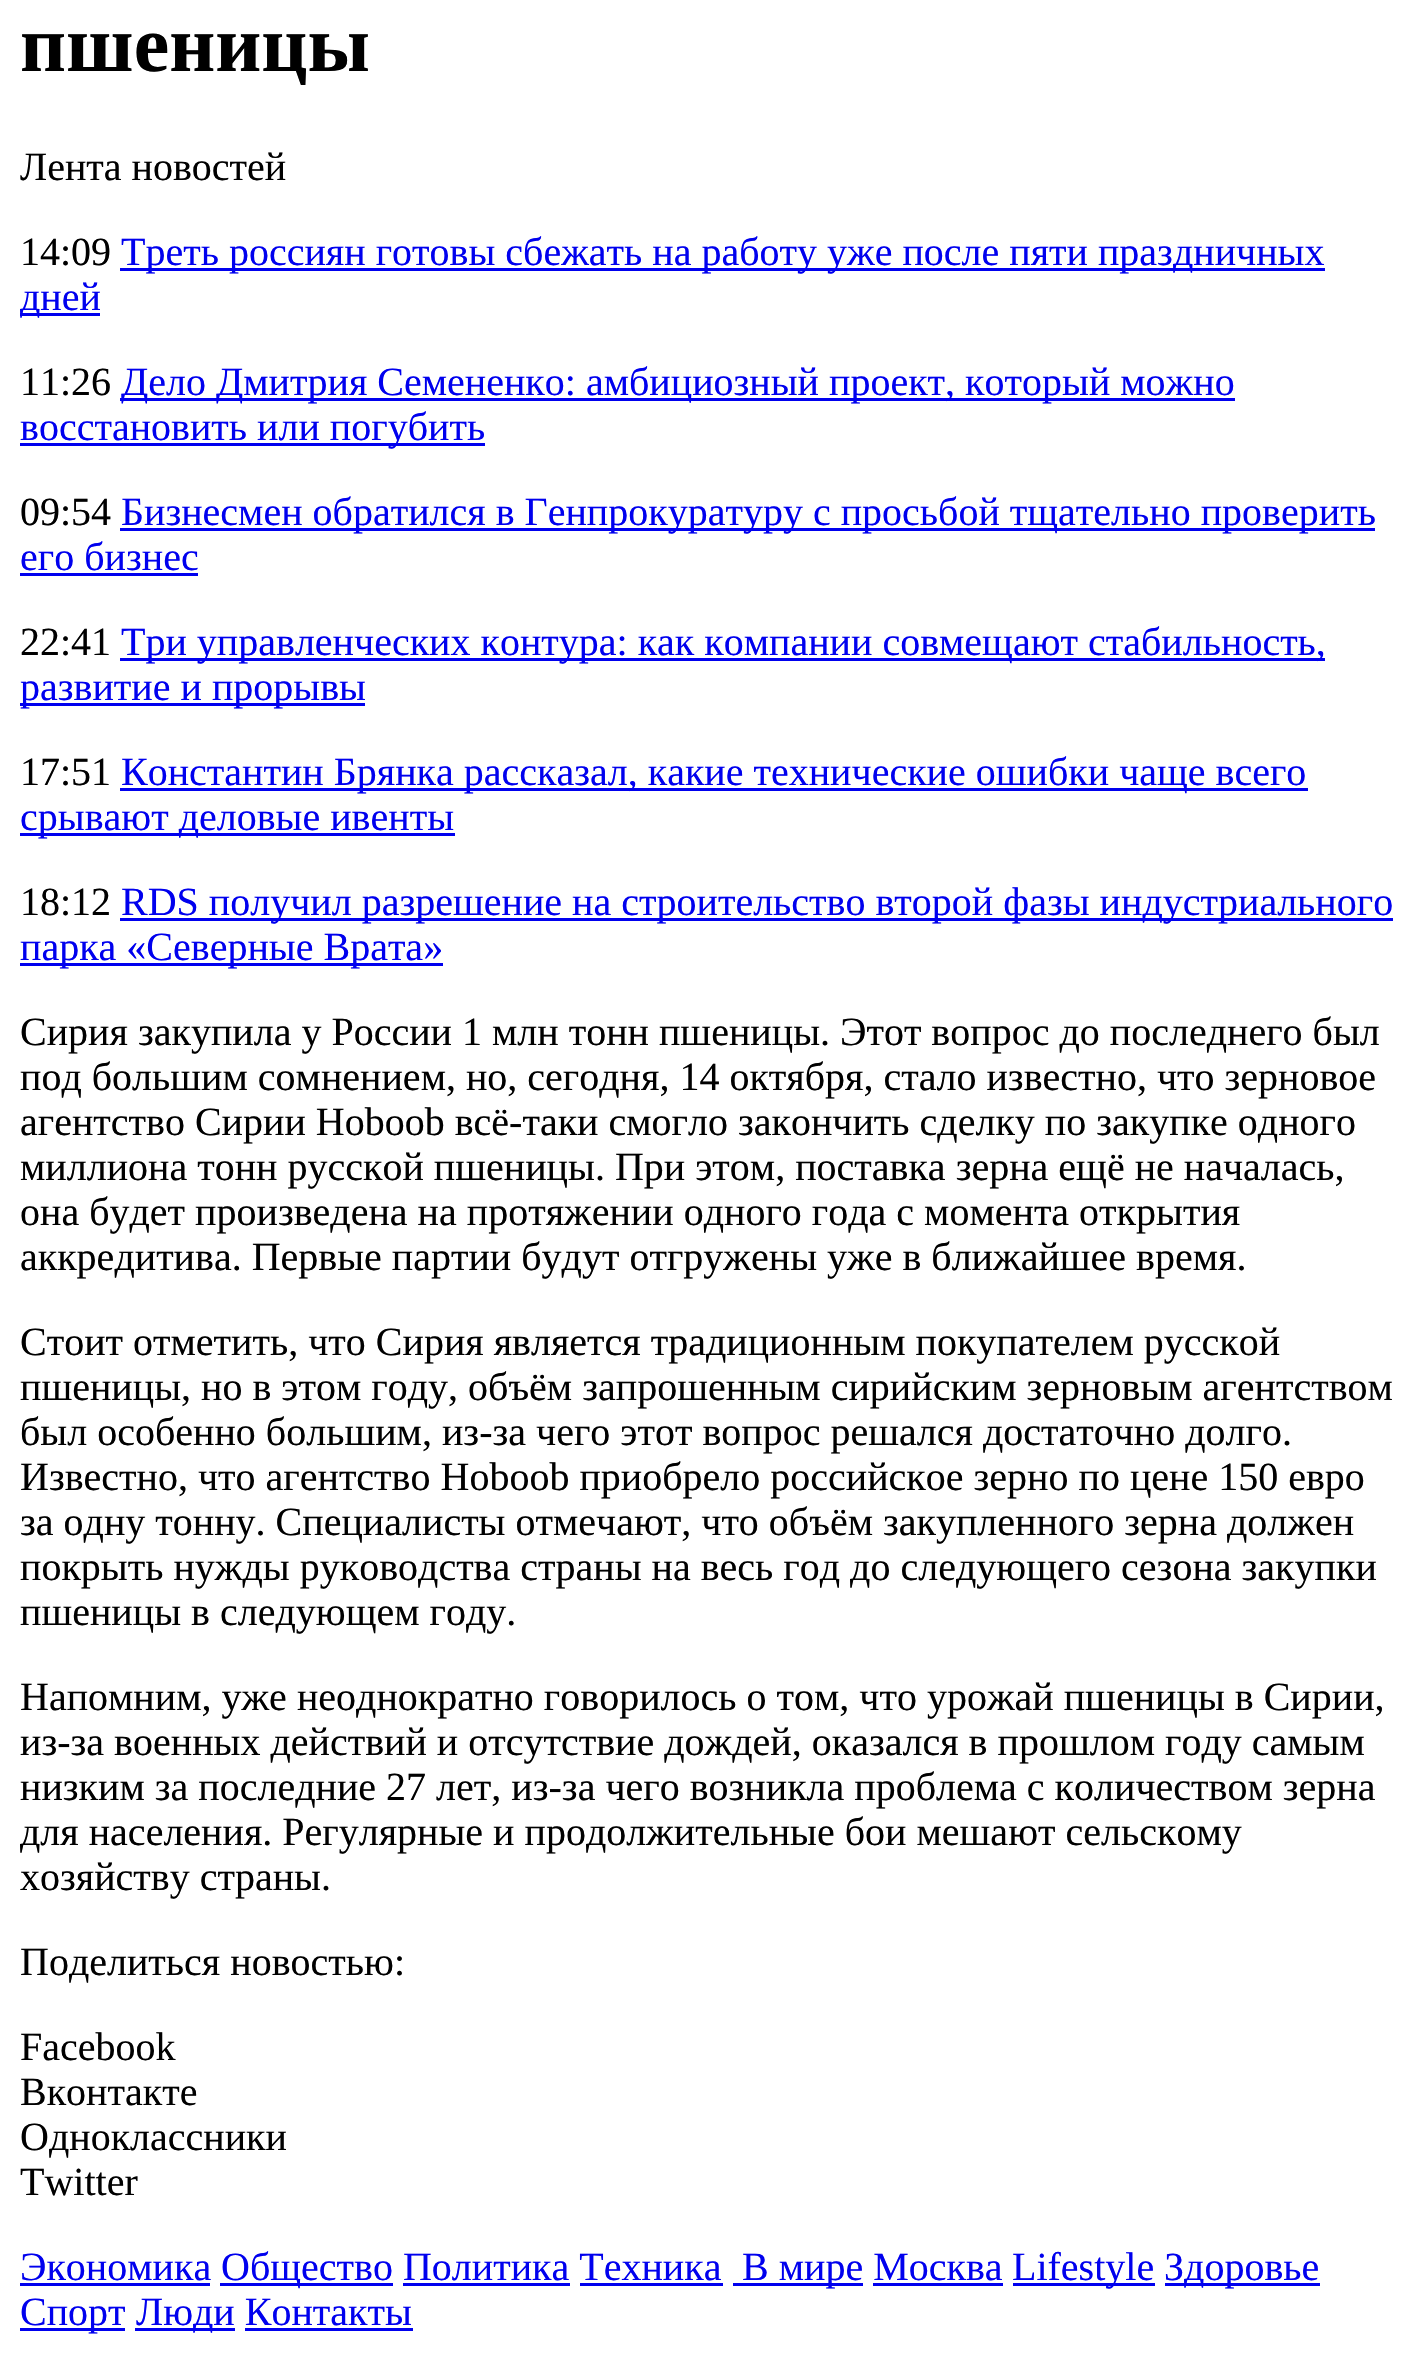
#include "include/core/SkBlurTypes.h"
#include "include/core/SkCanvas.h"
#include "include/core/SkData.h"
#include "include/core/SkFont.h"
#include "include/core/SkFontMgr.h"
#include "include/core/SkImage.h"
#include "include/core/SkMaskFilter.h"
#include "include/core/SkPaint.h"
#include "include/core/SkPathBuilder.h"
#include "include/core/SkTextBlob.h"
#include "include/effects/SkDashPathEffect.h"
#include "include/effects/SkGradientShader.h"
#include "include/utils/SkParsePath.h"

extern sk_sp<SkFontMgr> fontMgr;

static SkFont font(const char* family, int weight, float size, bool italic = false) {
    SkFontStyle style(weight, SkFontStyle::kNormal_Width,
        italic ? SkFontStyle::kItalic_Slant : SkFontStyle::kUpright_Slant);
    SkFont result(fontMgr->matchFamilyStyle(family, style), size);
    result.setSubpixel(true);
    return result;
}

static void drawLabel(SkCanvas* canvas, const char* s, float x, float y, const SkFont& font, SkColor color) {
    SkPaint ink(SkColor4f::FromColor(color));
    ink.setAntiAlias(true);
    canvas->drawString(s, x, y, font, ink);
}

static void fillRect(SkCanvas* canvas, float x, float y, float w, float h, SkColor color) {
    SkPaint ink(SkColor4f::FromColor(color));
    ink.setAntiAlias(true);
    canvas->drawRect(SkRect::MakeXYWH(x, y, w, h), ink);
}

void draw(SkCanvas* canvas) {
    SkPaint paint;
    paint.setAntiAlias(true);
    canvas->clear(0xFFFFFFFF);
    SkFont font1 = font("Liberation Serif", 700, 80);
    drawLabel(canvas, "пшеницы", 20, 71, font1, 0xFF000000);
    SkFont font2 = font("Liberation Serif", 400, 40);
    drawLabel(canvas, "Лента новостей", 20, 180, font2, 0xFF000000);
    drawLabel(canvas, "14:09", 20, 265, font2, 0xFF000000);
    fillRect(canvas, 120, 268, 1205, 3, 0xFF0000EE);
    drawLabel(canvas, "Треть россиян готовы сбежать на работу уже после пяти праздничных", 121, 265, font2, 0xFF0000EE);
    fillRect(canvas, 20, 313, 80, 3, 0xFF0000EE);
    drawLabel(canvas, "дней", 20, 310, font2, 0xFF0000EE);
    drawLabel(canvas, "11:26", 20, 395, font2, 0xFF000000);
    fillRect(canvas, 120, 398, 1115, 3, 0xFF0000EE);
    drawLabel(canvas, "Дело Дмитрия Семененко: амбициозный проект, который можно", 121, 395, font2, 0xFF0000EE);
    fillRect(canvas, 20, 443, 465, 3, 0xFF0000EE);
    drawLabel(canvas, "восстановить или погубить", 20, 440, font2, 0xFF0000EE);
    drawLabel(canvas, "09:54", 20, 525, font2, 0xFF000000);
    fillRect(canvas, 120, 528, 1255, 3, 0xFF0000EE);
    drawLabel(canvas, "Бизнесмен обратился в Генпрокуратуру с просьбой тщательно проверить", 121, 525, font2, 0xFF0000EE);
    drawLabel(canvas, "его бизнес", 20, 570, font2, 0xFF0000EE);
    fillRect(canvas, 20, 573, 178, 3, 0xFF0000EE);
    drawLabel(canvas, "22:41", 20, 655, font2, 0xFF000000);
    fillRect(canvas, 120, 658, 1205, 3, 0xFF0000EE);
    drawLabel(canvas, "Три управленческих контура: как компании совмещают стабильность,", 121, 655, font2, 0xFF0000EE);
    fillRect(canvas, 20, 703, 345, 3, 0xFF0000EE);
    drawLabel(canvas, "развитие и прорывы", 20, 700, font2, 0xFF0000EE);
    drawLabel(canvas, "17:51", 20, 785, font2, 0xFF000000);
    fillRect(canvas, 120, 788, 1188, 3, 0xFF0000EE);
    drawLabel(canvas, "Константин Брянка рассказал, какие технические ошибки чаще всего", 121, 785, font2, 0xFF0000EE);
    fillRect(canvas, 20, 833, 435, 3, 0xFF0000EE);
    drawLabel(canvas, "срывают деловые ивенты", 20, 830, font2, 0xFF0000EE);
    drawLabel(canvas, "18:12", 20, 915, font2, 0xFF000000);
    fillRect(canvas, 120, 918, 1273, 3, 0xFF0000EE);
    drawLabel(canvas, "RDS получил разрешение на строительство второй фазы индустриального", 121, 915, font2, 0xFF0000EE);
    fillRect(canvas, 20, 963, 423, 3, 0xFF0000EE);
    drawLabel(canvas, "парка «Северные Врата»", 20, 960, font2, 0xFF0000EE);
    drawLabel(canvas, "Сирия закупила у России 1 млн тонн пшеницы. Этот вопрос до последнего был", 20, 1045, font2, 0xFF000000);
    drawLabel(canvas, "под большим сомнением, но, сегодня, 14 октября, стало известно, что зерновое", 20, 1090, font2, 0xFF000000);
    drawLabel(canvas, "агентство Сирии Hoboob всё-таки смогло закончить сделку по закупке одного", 20, 1135, font2, 0xFF000000);
    drawLabel(canvas, "миллиона тонн русской пшеницы. При этом, поставка зерна ещё не началась,", 20, 1180, font2, 0xFF000000);
    drawLabel(canvas, "она будет произведена на протяжении одного года с момента открытия", 20, 1225, font2, 0xFF000000);
    drawLabel(canvas, "аккредитива. Первые партии будут отгружены уже в ближайшее время.", 20, 1270, font2, 0xFF000000);
    drawLabel(canvas, "Стоит отметить, что Сирия является традиционным покупателем русской", 20, 1355, font2, 0xFF000000);
    drawLabel(canvas, "пшеницы, но в этом году, объём запрошенным сирийским зерновым агентством", 20, 1400, font2, 0xFF000000);
    drawLabel(canvas, "был особенно большим, из-за чего этот вопрос решался достаточно долго.", 20, 1445, font2, 0xFF000000);
    drawLabel(canvas, "Известно, что агентство Hoboob приобрело российское зерно по цене 150 евро", 20, 1490, font2, 0xFF000000);
    drawLabel(canvas, "за одну тонну. Специалисты отмечают, что объём закупленного зерна должен", 20, 1535, font2, 0xFF000000);
    drawLabel(canvas, "покрыть нужды руководства страны на весь год до следующего сезона закупки", 20, 1580, font2, 0xFF000000);
    drawLabel(canvas, "пшеницы в следующем году.", 20, 1625, font2, 0xFF000000);
    drawLabel(canvas, "Напомним, уже неоднократно говорилось о том, что урожай пшеницы в Сирии,", 20, 1710, font2, 0xFF000000);
    drawLabel(canvas, "из-за военных действий и отсутствие дождей, оказался в прошлом году самым", 20, 1755, font2, 0xFF000000);
    drawLabel(canvas, "низким за последние 27 лет, из-за чего возникла проблема с количеством зерна", 20, 1800, font2, 0xFF000000);
    drawLabel(canvas, "для населения. Регулярные и продолжительные бои мешают сельскому", 20, 1845, font2, 0xFF000000);
    drawLabel(canvas, "хозяйству страны.", 20, 1890, font2, 0xFF000000);
    drawLabel(canvas, "Поделиться новостью:", 20, 1975, font2, 0xFF000000);
    drawLabel(canvas, "Facebook", 20, 2060, font2, 0xFF000000);
    drawLabel(canvas, "Вконтакте", 20, 2105, font2, 0xFF000000);
    drawLabel(canvas, "Одноклассники", 20, 2150, font2, 0xFF000000);
    drawLabel(canvas, "Twitter", 20, 2195, font2, 0xFF000000);
    drawLabel(canvas, "Экономика", 20, 2280, font2, 0xFF0000EE);
    fillRect(canvas, 20, 2283, 190, 3, 0xFF0000EE);
    fillRect(canvas, 220, 2283, 173, 3, 0xFF0000EE);
    drawLabel(canvas, "Общество Политика Техника", 221, 2280, font2, 0xFF0000EE);
    fillRect(canvas, 733, 2283, 130, 3, 0xFF0000EE);
    drawLabel(canvas, "В мире Москва", 742, 2280, font2, 0xFF0000EE);
    fillRect(canvas, 1013, 2283, 142, 3, 0xFF0000EE);
    drawLabel(canvas, "Lifestyle", 1012, 2280, font2, 0xFF0000EE);
    fillRect(canvas, 1165, 2283, 155, 3, 0xFF0000EE);
    drawLabel(canvas, "Здоровье", 1164, 2280, font2, 0xFF0000EE);
    fillRect(canvas, 403, 2283, 167, 3, 0xFF0000EE);
    fillRect(canvas, 580, 2283, 143, 3, 0xFF0000EE);
    fillRect(canvas, 873, 2283, 130, 3, 0xFF0000EE);
    fillRect(canvas, 20, 2328, 105, 3, 0xFF0000EE);
    drawLabel(canvas, "Спорт", 20, 2325, font2, 0xFF0000EE);
    fillRect(canvas, 135, 2328, 100, 3, 0xFF0000EE);
    drawLabel(canvas, "Люди Контакты", 136, 2325, font2, 0xFF0000EE);
    fillRect(canvas, 245, 2328, 168, 3, 0xFF0000EE);
}
